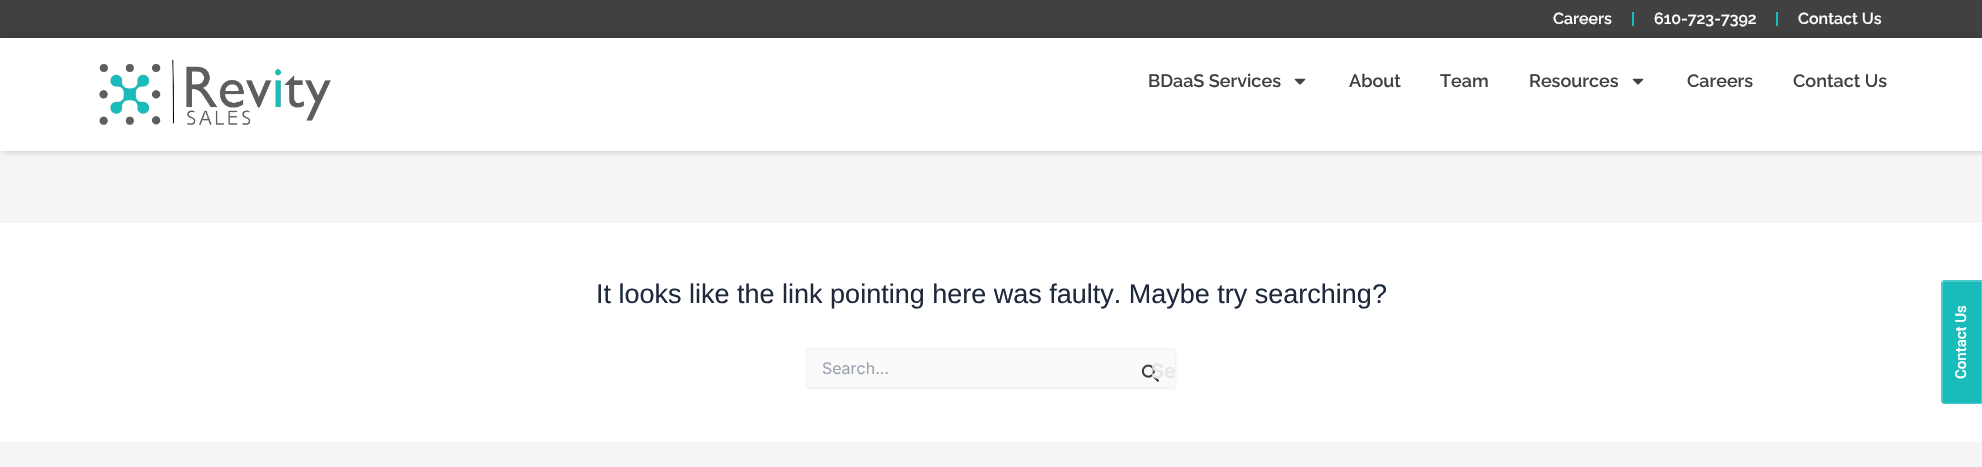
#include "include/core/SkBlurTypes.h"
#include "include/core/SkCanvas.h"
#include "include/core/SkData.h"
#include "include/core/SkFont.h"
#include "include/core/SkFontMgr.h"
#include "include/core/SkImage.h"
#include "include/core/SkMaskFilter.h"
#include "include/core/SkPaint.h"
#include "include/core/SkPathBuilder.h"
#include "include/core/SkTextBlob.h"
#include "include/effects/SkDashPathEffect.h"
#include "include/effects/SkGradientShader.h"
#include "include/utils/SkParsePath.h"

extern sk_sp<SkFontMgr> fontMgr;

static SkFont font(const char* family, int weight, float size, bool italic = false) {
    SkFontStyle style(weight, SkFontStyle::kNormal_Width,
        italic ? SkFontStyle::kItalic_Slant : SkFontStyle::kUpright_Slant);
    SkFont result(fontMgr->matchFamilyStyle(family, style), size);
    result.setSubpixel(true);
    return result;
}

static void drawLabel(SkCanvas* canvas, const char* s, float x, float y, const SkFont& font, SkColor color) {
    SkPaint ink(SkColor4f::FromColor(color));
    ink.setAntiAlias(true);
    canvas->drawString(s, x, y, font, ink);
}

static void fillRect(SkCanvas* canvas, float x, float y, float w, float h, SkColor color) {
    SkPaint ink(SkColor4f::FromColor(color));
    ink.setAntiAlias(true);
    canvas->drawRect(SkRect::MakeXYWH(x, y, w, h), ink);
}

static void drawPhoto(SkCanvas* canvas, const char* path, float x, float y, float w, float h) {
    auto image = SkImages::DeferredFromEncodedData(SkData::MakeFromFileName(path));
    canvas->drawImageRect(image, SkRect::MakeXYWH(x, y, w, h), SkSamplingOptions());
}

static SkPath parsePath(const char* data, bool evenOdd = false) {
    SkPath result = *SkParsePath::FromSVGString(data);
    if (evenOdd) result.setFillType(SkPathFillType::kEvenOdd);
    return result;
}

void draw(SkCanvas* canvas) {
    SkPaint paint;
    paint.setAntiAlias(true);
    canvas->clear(0xFFF5F5F5);
    fillRect(canvas, 0, 223, 1982, 219, 0xFFFFFFFF);
    SkFont font1 = font("Liberation Sans", 400, 27);
    drawLabel(canvas, "It looks like the link pointing here was faulty. Maybe try searching?", 596, 303, font1, 0xFF1E293B);
    paint.setColor(0x0D000000);
    paint.setMaskFilter(SkMaskFilter::MakeBlur(kNormal_SkBlurStyle, 1));
    canvas->drawRoundRect(SkRect::MakeXYWH(806, 349, 370, 40), 2, 2, paint);
    paint.setMaskFilter(nullptr);
    paint.setColor(0xFFFAFAFA);
    canvas->drawRoundRect(SkRect::MakeXYWH(806.5f, 348.5f, 369, 39), 1.5f, 1.5f, paint);
    paint.setStroke(true);
    paint.setStrokeWidth(1);
    paint.setColor(0xFFF2F5F7);
    canvas->drawRoundRect(SkRect::MakeXYWH(806.5f, 348.5f, 369, 39), 1.5f, 1.5f, paint);
    SkFont font2 = font("Inter", 400, 16);
    drawLabel(canvas, "Search...", 822, 374, font2, 0xFF9CA3AF);
    drawPhoto(canvas, "assets/img1.png", 1141, 364, 18, 18);
    SkFont font3 = font("Inter", 600, 20);
    drawLabel(canvas, "Se", 1151, 378, font3, 0xFFE7E7E7);
    fillRect(canvas, 0, 0, 1982, 38, 0xFF414141);
    SkFont font4 = font("Raleway", 600, 16);
    drawLabel(canvas, "Careers", 1553, 24, font4, 0xFFFFFFFF);
    fillRect(canvas, 1632, 12, 2, 14, 0xFF19BCBB);
    drawLabel(canvas, "610-723-7392", 1654, 24, font4, 0xFFFFFFFF);
    fillRect(canvas, 1776, 12, 2, 14, 0xFF19BCBB);
    drawLabel(canvas, "Contact Us", 1798, 24, font4, 0xFFFFFFFF);
    paint.setStroke(false);
    paint.setColor(0x38000000);
    paint.setMaskFilter(SkMaskFilter::MakeBlur(kNormal_SkBlurStyle, 3.5f));
    canvas->drawRect(SkRect::MakeXYWH(3, 38, 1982, 113), paint);
    paint.setMaskFilter(nullptr);
    fillRect(canvas, 0, 38, 1982, 113, 0xFFFFFFFF);
    drawPhoto(canvas, "assets/img2.png", 99, 59, 232, 66);
    SkFont font5 = font("Raleway", 600, 18);
    drawLabel(canvas, "BDaaS Services", 1148, 87, font5, 0xFF414141);
    drawPhoto(canvas, "assets/img3.png", 1294, 78, 12, 7);
    drawLabel(canvas, "About", 1349, 87, font5, 0xFF414141);
    drawLabel(canvas, "Team", 1440, 87, font5, 0xFF414141);
    drawLabel(canvas, "Resources", 1529, 87, font5, 0xFF414141);
    drawPhoto(canvas, "assets/img3.png", 1632, 78, 12, 7);
    drawLabel(canvas, "Careers", 1687, 87, font5, 0xFF414141);
    drawLabel(canvas, "Contact Us", 1793, 87, font5, 0xFF414141);
    paint.setColor(0xFF19BCBB);
    canvas->drawPath(parsePath("M1941 401V283C1941 282 1943 280 1944 280H1982V404H1944C1943 404 1941 403 1941 401Z"), paint);
    paint.setStroke(true);
    paint.setColor(0x70FFFFFF);
    canvas->drawPath(parsePath("M1942 401.5V283.5C1942 282 1943 281 1944.5 281H1982V404H1944.5C1943 404 1942 402.5 1942 401.5Z"), paint);
    SkFont font6 = font("Roboto", 500, 15);
    canvas->save();
    canvas->rotate(-90, 1966, 379);
    drawLabel(canvas, "Contact Us", 1966, 379, font6, 0xFFFFFFFF);
    canvas->restore();
}
